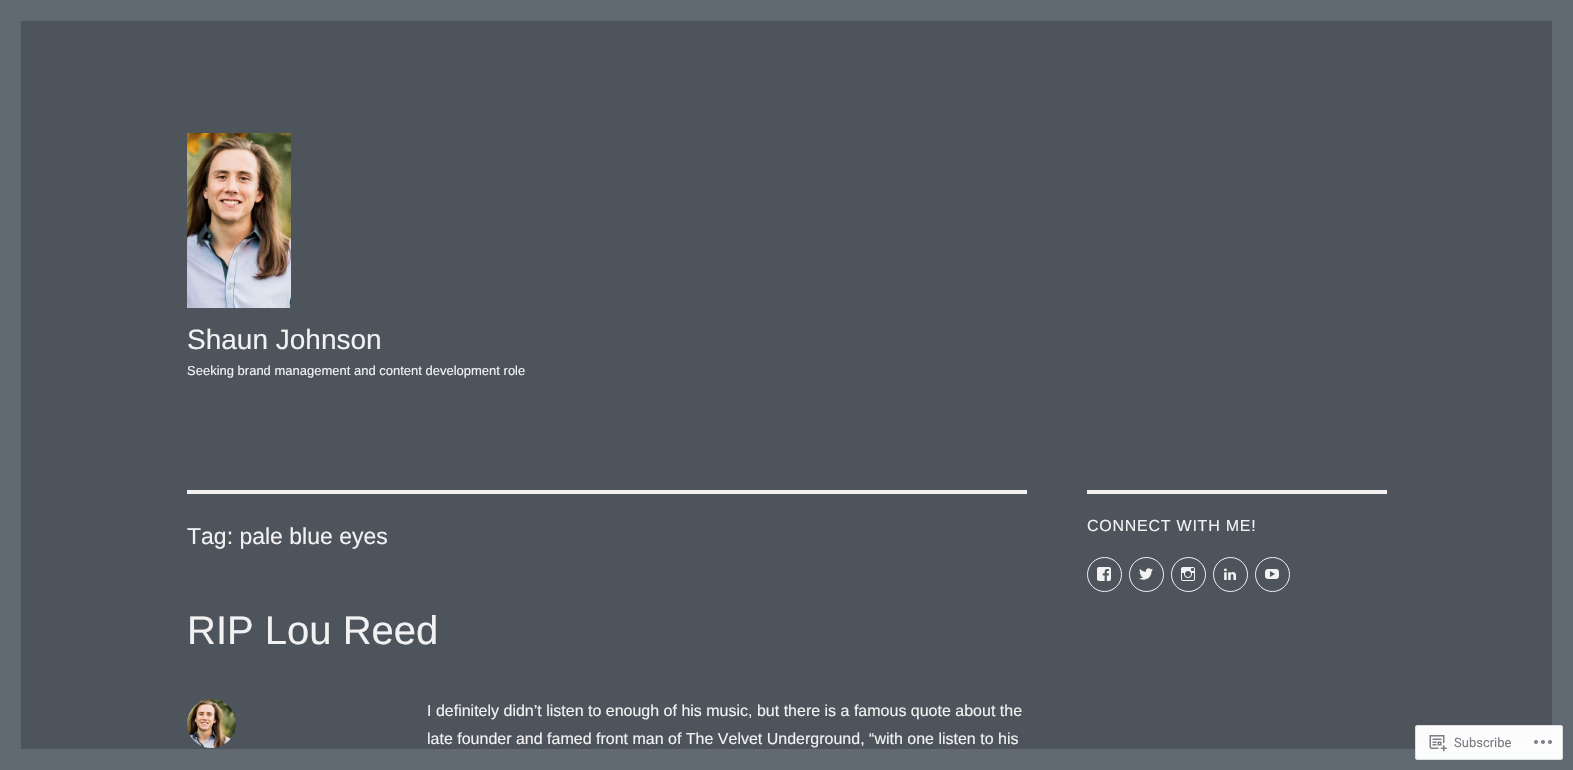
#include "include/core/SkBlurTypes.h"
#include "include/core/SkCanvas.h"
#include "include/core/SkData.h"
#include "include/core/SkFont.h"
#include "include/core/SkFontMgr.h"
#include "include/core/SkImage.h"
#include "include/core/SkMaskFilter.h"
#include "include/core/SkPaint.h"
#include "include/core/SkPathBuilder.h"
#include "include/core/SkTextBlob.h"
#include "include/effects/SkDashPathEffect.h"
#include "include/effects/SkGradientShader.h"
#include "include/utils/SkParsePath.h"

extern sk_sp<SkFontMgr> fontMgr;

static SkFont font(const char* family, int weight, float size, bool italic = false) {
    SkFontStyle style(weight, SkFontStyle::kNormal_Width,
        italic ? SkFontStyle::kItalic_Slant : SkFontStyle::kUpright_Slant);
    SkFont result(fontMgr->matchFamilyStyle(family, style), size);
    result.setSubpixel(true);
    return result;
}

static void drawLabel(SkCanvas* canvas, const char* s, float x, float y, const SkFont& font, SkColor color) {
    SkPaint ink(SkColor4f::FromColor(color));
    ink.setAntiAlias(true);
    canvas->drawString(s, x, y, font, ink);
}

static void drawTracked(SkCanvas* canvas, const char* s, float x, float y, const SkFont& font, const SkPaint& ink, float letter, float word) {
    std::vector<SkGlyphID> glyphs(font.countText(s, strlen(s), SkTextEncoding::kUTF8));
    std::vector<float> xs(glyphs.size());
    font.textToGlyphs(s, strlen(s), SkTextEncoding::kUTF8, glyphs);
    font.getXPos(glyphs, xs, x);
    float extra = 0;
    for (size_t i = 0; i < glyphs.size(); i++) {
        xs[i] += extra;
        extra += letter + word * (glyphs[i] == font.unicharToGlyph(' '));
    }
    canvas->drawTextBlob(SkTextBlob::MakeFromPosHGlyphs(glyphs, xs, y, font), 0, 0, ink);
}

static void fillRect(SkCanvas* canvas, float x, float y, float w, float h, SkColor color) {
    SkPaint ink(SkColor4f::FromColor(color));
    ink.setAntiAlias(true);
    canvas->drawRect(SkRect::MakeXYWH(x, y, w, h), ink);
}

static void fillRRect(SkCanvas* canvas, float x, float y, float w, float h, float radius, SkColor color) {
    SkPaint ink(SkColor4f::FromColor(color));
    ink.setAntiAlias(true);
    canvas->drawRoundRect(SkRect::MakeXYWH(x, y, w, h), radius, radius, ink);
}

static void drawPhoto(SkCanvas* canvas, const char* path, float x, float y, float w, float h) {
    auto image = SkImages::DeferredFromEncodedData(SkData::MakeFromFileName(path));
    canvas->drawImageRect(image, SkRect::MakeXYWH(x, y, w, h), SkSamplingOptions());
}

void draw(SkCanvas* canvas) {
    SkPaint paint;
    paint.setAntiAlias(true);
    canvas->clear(0xFF616A73);
    fillRect(canvas, 21, 21, 1531, 728, 0xFF4D545C);
    drawPhoto(canvas, "assets/img1.png", 187, 133, 104, 175);
    SkFont font1 = font("Arimo", 400, 28);
    drawLabel(canvas, "Shaun Johnson", 187, 349, font1, 0xFFF2F2F2);
    SkFont font2 = font("Arimo", 400, 13);
    drawLabel(canvas, "Seeking brand management and content development role", 187, 375, font2, 0xFFF2F2F2);
    fillRect(canvas, 1087, 490, 300, 4, 0xFFF2F2F2);
    SkFont font3 = font("Arimo", 400, 16);
    paint.setColor(0xFFF2F2F2);
    drawTracked(canvas, "CONNECT WITH ME!", 1087, 531, font3, paint, 0.75f, 0);
    paint.setStroke(true);
    paint.setStrokeWidth(1);
    canvas->drawCircle(1104.5f, 574.5f, 17, paint);
    drawPhoto(canvas, "assets/img2.png", 1097, 567, 14, 14);
    canvas->drawCircle(1146.5f, 574.5f, 17, paint);
    drawPhoto(canvas, "assets/img3.png", 1139, 568, 14, 12);
    canvas->drawCircle(1188.5f, 574.5f, 17, paint);
    drawPhoto(canvas, "assets/img4.png", 1181, 567, 14, 14);
    canvas->drawCircle(1230.5f, 574.5f, 17, paint);
    drawPhoto(canvas, "assets/img5.png", 1224, 568, 12, 12);
    canvas->drawCircle(1272.5f, 574.5f, 17, paint);
    drawPhoto(canvas, "assets/img6.png", 1265, 569, 14, 10);
    fillRect(canvas, 187, 490, 840, 4, 0xFFF2F2F2);
    SkFont font4 = font("Arimo", 400, 23);
    drawLabel(canvas, "Tag: pale blue eyes", 187, 544, font4, 0xFFF2F2F2);
    SkFont font5 = font("Arimo", 400, 40);
    drawLabel(canvas, "RIP Lou Reed", 187, 644, font5, 0xFFF2F2F2);
    drawPhoto(canvas, "assets/img7.png", 187, 699, 49, 49);
    drawLabel(canvas, "I definitely didn’t listen to enough of his music, but there is a famous quote about the", 427, 716, font3, 0xFFF2F2F2);
    drawLabel(canvas, "late founder and famed front man of The Velvet Underground, “with one listen to his", 427, 744, font3, 0xFFF2F2F2);
    fillRRect(canvas, 1415, 725, 148, 35, 3, 0xFAFFFFFF);
    paint.setColor(0xFADCDCDE);
    canvas->drawRoundRect(SkRect::MakeXYWH(1415.5f, 725.5f, 147, 34), 2.5f, 2.5f, paint);
    drawPhoto(canvas, "assets/img8.png", 1429, 735, 18, 17);
    SkFont font6 = font("Roboto", 400, 13);
    drawLabel(canvas, "Subscribe", 1454, 747, font6, 0xFF777B81);
    drawPhoto(canvas, "assets/img9.png", 1534, 740, 18, 4);
}
